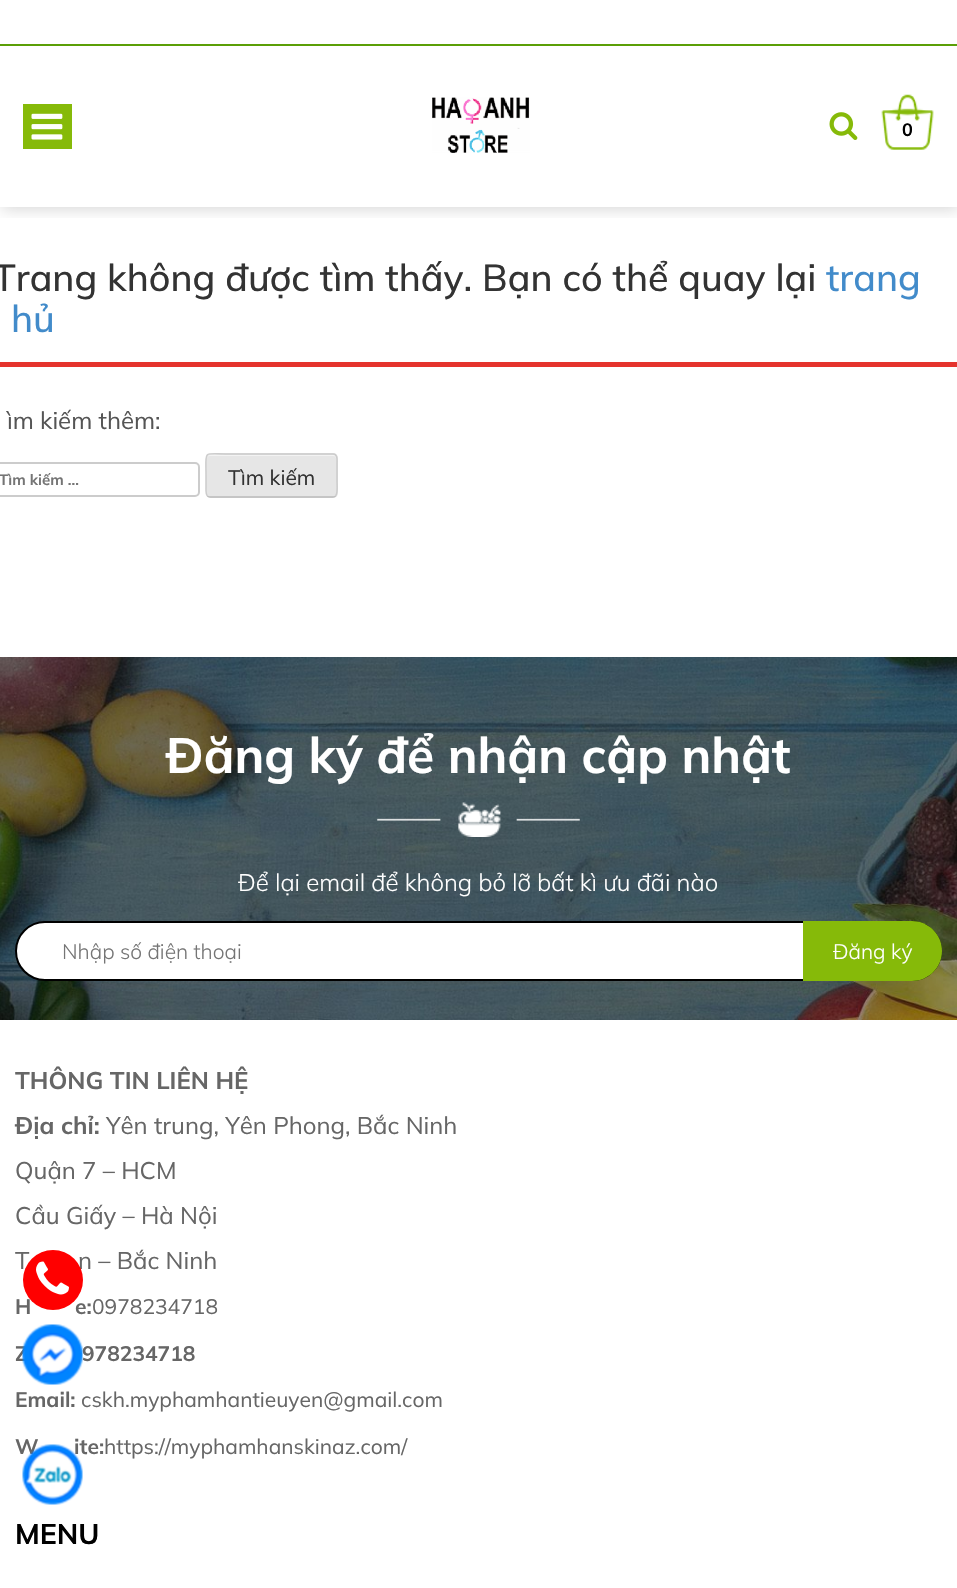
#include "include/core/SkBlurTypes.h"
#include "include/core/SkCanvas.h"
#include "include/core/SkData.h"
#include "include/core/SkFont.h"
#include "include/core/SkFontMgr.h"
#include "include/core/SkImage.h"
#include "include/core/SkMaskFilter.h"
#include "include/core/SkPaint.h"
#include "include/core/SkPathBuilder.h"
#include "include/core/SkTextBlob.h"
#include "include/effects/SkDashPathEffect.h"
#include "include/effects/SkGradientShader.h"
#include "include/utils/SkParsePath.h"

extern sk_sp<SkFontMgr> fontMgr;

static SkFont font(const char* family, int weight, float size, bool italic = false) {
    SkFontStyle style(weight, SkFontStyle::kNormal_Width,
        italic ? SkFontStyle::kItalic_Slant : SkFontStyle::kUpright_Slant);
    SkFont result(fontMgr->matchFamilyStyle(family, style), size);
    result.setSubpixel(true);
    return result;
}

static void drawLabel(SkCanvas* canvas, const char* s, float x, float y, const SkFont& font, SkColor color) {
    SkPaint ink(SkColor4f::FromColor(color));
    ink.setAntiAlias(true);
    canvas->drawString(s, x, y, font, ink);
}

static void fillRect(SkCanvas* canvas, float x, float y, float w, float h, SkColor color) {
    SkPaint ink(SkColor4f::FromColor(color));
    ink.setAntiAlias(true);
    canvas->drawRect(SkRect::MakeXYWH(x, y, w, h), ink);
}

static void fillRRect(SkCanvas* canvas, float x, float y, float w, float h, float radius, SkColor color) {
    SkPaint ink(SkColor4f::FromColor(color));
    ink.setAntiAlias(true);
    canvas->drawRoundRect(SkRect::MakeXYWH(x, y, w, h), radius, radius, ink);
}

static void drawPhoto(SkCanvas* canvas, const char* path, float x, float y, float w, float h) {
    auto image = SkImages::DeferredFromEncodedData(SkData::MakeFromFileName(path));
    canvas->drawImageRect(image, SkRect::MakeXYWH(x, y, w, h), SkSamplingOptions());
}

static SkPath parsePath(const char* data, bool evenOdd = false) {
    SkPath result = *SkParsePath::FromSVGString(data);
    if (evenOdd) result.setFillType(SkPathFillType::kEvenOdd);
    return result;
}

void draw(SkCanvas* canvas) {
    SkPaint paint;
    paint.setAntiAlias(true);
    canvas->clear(0xFFFFFFFF);
    canvas->save();
    canvas->clipRect(SkRect::MakeXYWH(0, 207, 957, 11));
    paint.setColor(0x29000000);
    paint.setMaskFilter(SkMaskFilter::MakeBlur(kNormal_SkBlurStyle, 7.5f));
    canvas->drawRect(SkRect::MakeXYWH(2, 2, 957, 207), paint);
    paint.setMaskFilter(nullptr);
    canvas->restore();
    fillRect(canvas, 0, 44, 957, 2, 0xFF5B9F07);
    fillRect(canvas, 23, 104, 49, 45, 0xFF86BA09);
    drawPhoto(canvas, "assets/img1.png", 31, 113, 32, 27);
    drawPhoto(canvas, "assets/img2.png", 432, 97, 98, 56);
    drawPhoto(canvas, "assets/img3.png", 829, 112, 29, 28);
    drawPhoto(canvas, "assets/img4.png", 881, 94, 53, 56);
    SkFont font1 = font("Mulish", 700, 18);
    drawLabel(canvas, "0", 902, 136, font1, 0xFF000000);
    fillRect(canvas, 0, 362, 957, 5, 0xFFE5332D);
    SkFont font2 = font("Mulish", 500, 37.5f);
    drawLabel(canvas, "Trang không được tìm thấy. Bạn có thể quay lại", -7, 291, font2, 0xFF333333);
    drawLabel(canvas, "trang", 826, 291, font2, 0xFF428BCA);
    drawLabel(canvas, "hủ", 11, 332, font2, 0xFF428BCA);
    SkFont font3 = font("Mulish", 400, 24);
    drawLabel(canvas, "ìm kiếm thêm:", 7, 429, font3, 0xFF555555);
    paint.setStroke(true);
    paint.setStrokeWidth(2);
    paint.setColor(0xFFCCCCCC);
    canvas->drawRoundRect(SkRect::MakeXYWH(-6, 463, 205, 33), 4, 4, paint);
    SkFont font4 = font("Mulish", 700, 15);
    drawLabel(canvas, "Tìm kiếm …", -1, 485, font4, 0xFF757575);
    fillRRect(canvas, 206, 453, 132, 45, 5, 0xFFE6E6E6);
    paint.setStroke(false);
    paint.setColor(0xFFF3F3F3);
    canvas->drawPath(parsePath("M210 456H333C335 456 336 457 336 459C336 457 336 455 334 455H210C208 455 207 457 207 459C207 457 208 456 210 456Z"), paint);
    paint.setStroke(true);
    paint.setStrokeWidth(1.5f);
    paint.setColor(0xFFBBBBBB);
    canvas->drawPath(parsePath("M335.5 496C335 497 334 497 333 497H210C209 497 208 497 207.5 496"), paint);
    paint.setColor(0xFFCCCCCC);
    canvas->drawPath(parsePath("M207.5 496C205.5 494 206 489.5 206 487.5V475.5C206 448.5 202 454 230.5 454H333C338 454 337 460.5 337 463.5V481.5C337 484.5 338 493.5 335.5 496"), paint);
    SkFont font5 = font("Mulish", 400, 21);
    drawLabel(canvas, "Tìm kiếm", 228, 485, font5, 0xFF333333);
    drawPhoto(canvas, "assets/img5.png", 0, 657, 957, 363);
    SkFont font6 = font("Mulish", 700, 49.5f);
    drawLabel(canvas, "Đăng ký để nhận cập nhật", 166, 773, font6, 0xFFFFFFFF);
    drawPhoto(canvas, "assets/img6.png", 377, 802, 203, 35);
    SkFont font7 = font("Mulish", 300, 24);
    drawLabel(canvas, "Để lại email để không bỏ lỡ bất kì ưu đãi nào", 238, 891, font7, 0xFFFFFFFF);
    paint.setStroke(false);
    paint.setColor(0xFFFFFFFF);
    canvas->drawRoundRect(SkRect::MakeXYWH(16, 922, 925, 58), 29, 29, paint);
    paint.setStroke(true);
    paint.setStrokeWidth(2);
    paint.setColor(0xFF000000);
    canvas->drawRoundRect(SkRect::MakeXYWH(16, 922, 925, 58), 29, 29, paint);
    SkFont font8 = font("Mulish", 300, 21);
    drawLabel(canvas, "Nhập số điện thoại", 62, 959, font8, 0xFF757575);
    paint.setStroke(false);
    paint.setColor(0xFF86BA09);
    canvas->drawPath(parsePath("M803 921H912C928.5 921 942 934.5 942 951C942 967.5 928.5 981 912 981H803Z"), paint);
    drawLabel(canvas, "Đăng ký", 833, 959, font8, 0xFFFFFFFF);
    SkFont font9 = font("Mulish", 700, 24);
    drawLabel(canvas, "THÔNG TIN LIÊN HỆ", 15, 1089, font9, 0xFF666666);
    drawLabel(canvas, "Địa chỉ:", 15, 1134, font9, 0xFF666666);
    drawLabel(canvas, "Yên trung, Yên Phong, Bắc Ninh", 106, 1134, font3, 0xFF666666);
    drawLabel(canvas, "Quận 7 – HCM", 15, 1179, font3, 0xFF666666);
    drawLabel(canvas, "Cầu Giấy – Hà Nội", 15, 1224, font3, 0xFF666666);
    drawLabel(canvas, "T", 15, 1269, font3, 0xFF666666);
    drawLabel(canvas, "n – Bắc Ninh", 78, 1269, font3, 0xFF666666);
    SkFont font10 = font("Mulish", 700, 21);
    drawLabel(canvas, "H", 15, 1314, font10, 0xFF666666);
    drawLabel(canvas, "e:", 75, 1314, font10, 0xFF666666);
    drawLabel(canvas, "0978234718", 92, 1314, font5, 0xFF666666);
    drawLabel(canvas, "Z", 15, 1361, font10, 0xFF666666);
    drawLabel(canvas, "978234718", 82, 1361, font10, 0xFF666666);
    drawLabel(canvas, "Email:", 15, 1407, font10, 0xFF666666);
    drawLabel(canvas, "cskh.myphamhantieuyen@gmail.com", 81, 1407, font5, 0xFF666666);
    drawLabel(canvas, "W", 15, 1454, font10, 0xFF666666);
    drawLabel(canvas, "ite:", 74, 1454, font10, 0xFF666666);
    drawLabel(canvas, "https://myphamhanskinaz.com/", 104, 1454, font5, 0xFF666666);
    SkFont font11 = font("Mulish", 700, 28.5f);
    drawLabel(canvas, "MENU", 15, 1544, font11, 0xFF000000);
    paint.setColor(0xFFFF0000);
    canvas->drawCircle(53, 1280, 30, paint);
    drawPhoto(canvas, "assets/img7.png", 36, 1261, 33, 34);
    drawPhoto(canvas, "assets/img8.png", 22, 1324, 61, 61);
    drawPhoto(canvas, "assets/img9.png", 22, 1444, 61, 61);
}
